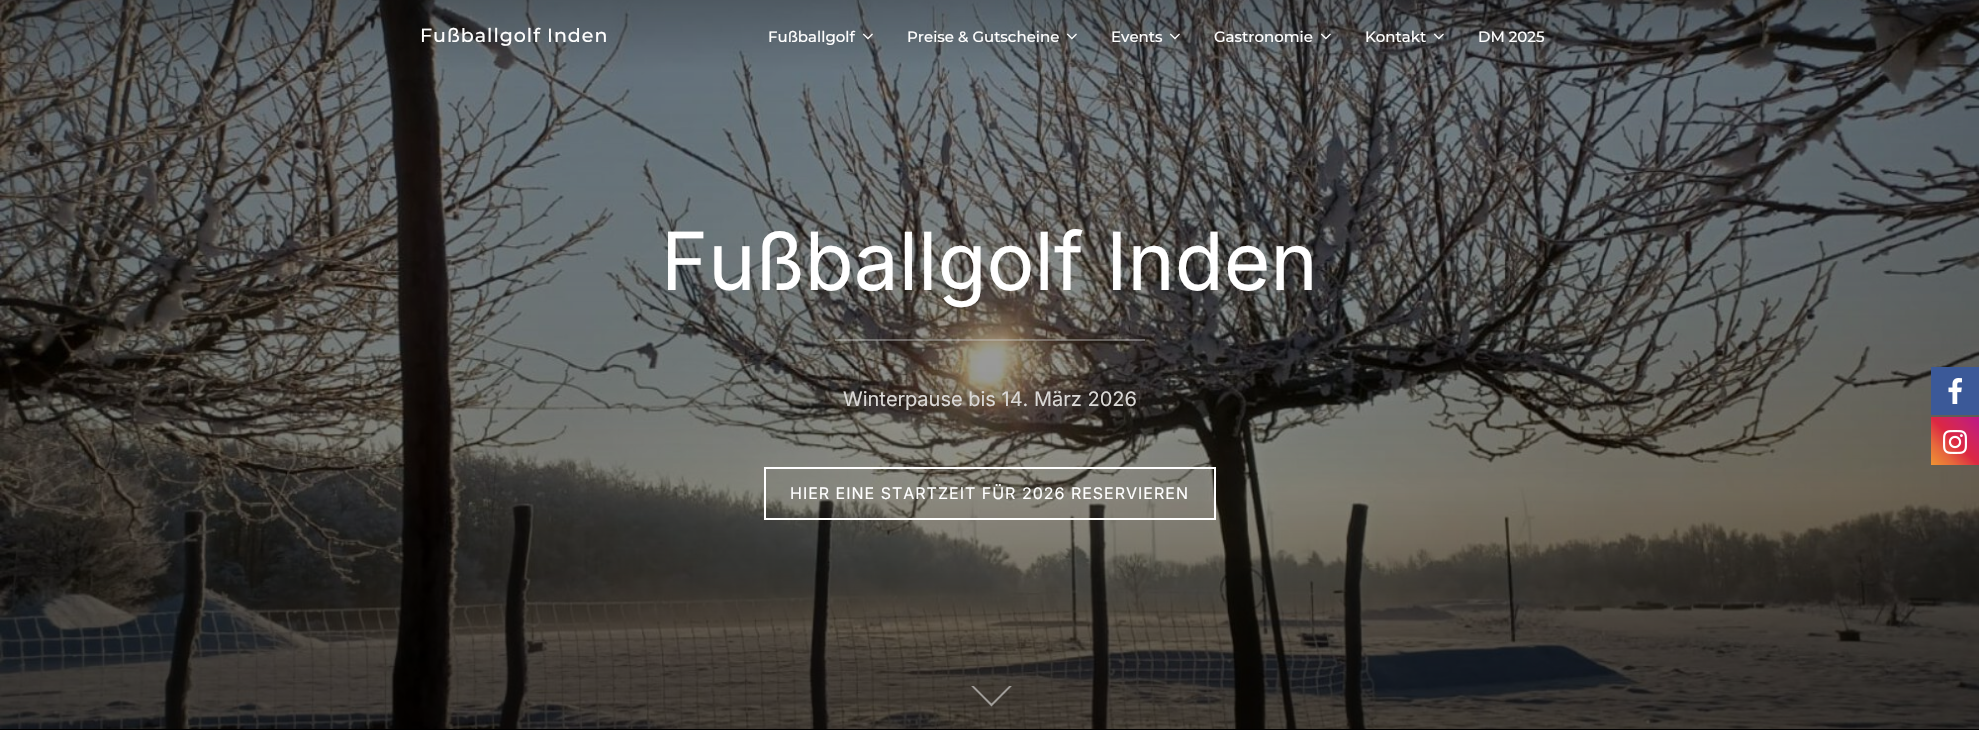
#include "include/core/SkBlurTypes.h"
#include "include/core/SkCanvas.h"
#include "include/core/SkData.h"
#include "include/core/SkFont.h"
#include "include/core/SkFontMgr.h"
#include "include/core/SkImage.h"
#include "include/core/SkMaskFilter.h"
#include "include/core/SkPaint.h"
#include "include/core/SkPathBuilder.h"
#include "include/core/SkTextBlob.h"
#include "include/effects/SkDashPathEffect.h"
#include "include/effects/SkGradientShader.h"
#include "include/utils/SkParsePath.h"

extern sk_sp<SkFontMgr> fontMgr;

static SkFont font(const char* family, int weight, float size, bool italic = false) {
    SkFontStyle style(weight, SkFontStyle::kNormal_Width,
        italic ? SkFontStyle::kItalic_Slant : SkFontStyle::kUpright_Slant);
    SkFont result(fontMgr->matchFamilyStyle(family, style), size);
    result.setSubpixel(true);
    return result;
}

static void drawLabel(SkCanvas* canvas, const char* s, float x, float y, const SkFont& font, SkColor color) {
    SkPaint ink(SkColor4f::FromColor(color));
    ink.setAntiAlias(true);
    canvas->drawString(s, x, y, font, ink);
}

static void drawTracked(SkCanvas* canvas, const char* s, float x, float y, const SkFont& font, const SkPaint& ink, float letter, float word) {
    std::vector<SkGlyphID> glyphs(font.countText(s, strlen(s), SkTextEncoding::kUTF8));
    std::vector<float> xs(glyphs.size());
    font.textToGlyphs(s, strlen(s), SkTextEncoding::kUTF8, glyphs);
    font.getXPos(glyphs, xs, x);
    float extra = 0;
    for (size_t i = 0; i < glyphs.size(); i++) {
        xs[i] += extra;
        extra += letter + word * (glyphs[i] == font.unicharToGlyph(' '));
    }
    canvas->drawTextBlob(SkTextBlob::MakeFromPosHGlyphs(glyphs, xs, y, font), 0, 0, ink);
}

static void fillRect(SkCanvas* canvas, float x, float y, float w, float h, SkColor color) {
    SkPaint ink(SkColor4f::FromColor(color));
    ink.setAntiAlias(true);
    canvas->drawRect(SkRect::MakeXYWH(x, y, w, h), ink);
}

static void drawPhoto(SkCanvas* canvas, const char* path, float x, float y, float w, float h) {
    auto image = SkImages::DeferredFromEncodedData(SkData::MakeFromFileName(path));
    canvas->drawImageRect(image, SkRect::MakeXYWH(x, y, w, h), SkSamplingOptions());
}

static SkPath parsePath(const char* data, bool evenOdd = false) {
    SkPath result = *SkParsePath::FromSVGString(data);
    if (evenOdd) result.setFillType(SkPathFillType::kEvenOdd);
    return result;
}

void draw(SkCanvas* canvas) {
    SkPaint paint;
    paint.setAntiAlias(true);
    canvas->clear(0xFF000000);
    drawPhoto(canvas, "assets/img6.png", 0, 0, 1979, 729);
    SkFont font1 = font("Montserrat", 500, 19);
    paint.setColor(0xFFFFFFFF);
    drawTracked(canvas, "Fußballgolf Inden", 420, 42, font1, paint, 1, 0);
    SkFont font2 = font("Montserrat", 500, 15);
    drawLabel(canvas, "Fußballgolf", 768, 42, font2, 0xFFFFFFFF);
    drawPhoto(canvas, "assets/img1.png", 862, 33, 11, 7);
    drawLabel(canvas, "Preise & Gutscheine", 907, 42, font2, 0xFFFFFFFF);
    drawPhoto(canvas, "assets/img2.png", 1066, 33, 11, 7);
    drawLabel(canvas, "Events", 1111, 42, font2, 0xFFFFFFFF);
    drawPhoto(canvas, "assets/img3.png", 1169, 33, 11, 7);
    drawLabel(canvas, "Gastronomie", 1214, 42, font2, 0xFFFFFFFF);
    drawPhoto(canvas, "assets/img4.png", 1320, 33, 11, 7);
    drawLabel(canvas, "Kontakt", 1365, 42, font2, 0xFFFFFFFF);
    drawPhoto(canvas, "assets/img5.png", 1433, 33, 11, 7);
    drawLabel(canvas, "DM 2025", 1478, 42, font2, 0xFFFFFFFF);
    SkFont font3 = font("Inter", 400, 80);
    drawLabel(canvas, "Fußballgolf Inden", 661, 290, font3, 0xFFFFFFFF);
    fillRect(canvas, 835, 339, 310, 2, 0x66C9C9C9);
    SkFont font4 = font("Inter", 400, 20);
    drawLabel(canvas, "Winterpause bis 14. März 2026", 843, 406, font4, 0xFFDBD9D7);
    paint.setStroke(true);
    paint.setStrokeWidth(2);
    canvas->drawRect(SkRect::MakeXYWH(765, 468, 450, 51), paint);
    SkFont font5 = font("Inter", 400, 16);
    paint.setStroke(false);
    drawTracked(canvas, "HIER EINE STARTZEIT FÜR 2026 RESERVIEREN", 790, 499, font5, paint, 1, 0);
    canvas->save();
    canvas->clipRect(SkRect::MakeXYWH(962, 686, 56, 24));
    paint.setStroke(true);
    paint.setColor(0x80FFFFFF);
    canvas->drawPath(parsePath("M991.5 665L1011.5 685L991.5 705L971.5 685Z"), paint);
    canvas->restore();
    fillRect(canvas, 1931, 367, 48, 48, 0xFF3B5998);
    drawPhoto(canvas, "assets/img7.png", 1948, 378, 14, 26);
    paint.setStroke(false);
    {
        const SkColor colors[] = {0xFFF09433, 0xFFE6683C, 0xFFDC2743, 0xFFCC2366, 0xFFBC1888};
        const float stops[] = {0, 0.25f, 0.5f, 0.75f, 1};
        const SkPoint ends[] = {{1931, 465}, {1979, 417}};
        paint.setShader(SkGradientShader::MakeLinear(ends, colors, stops, 5, SkTileMode::kClamp));
        paint.setAlpha(255);
    }
    canvas->drawRect(SkRect::MakeXYWH(1931, 417, 48, 48), paint);
    drawPhoto(canvas, "assets/img8.png", 1943, 430, 24, 24);
}
